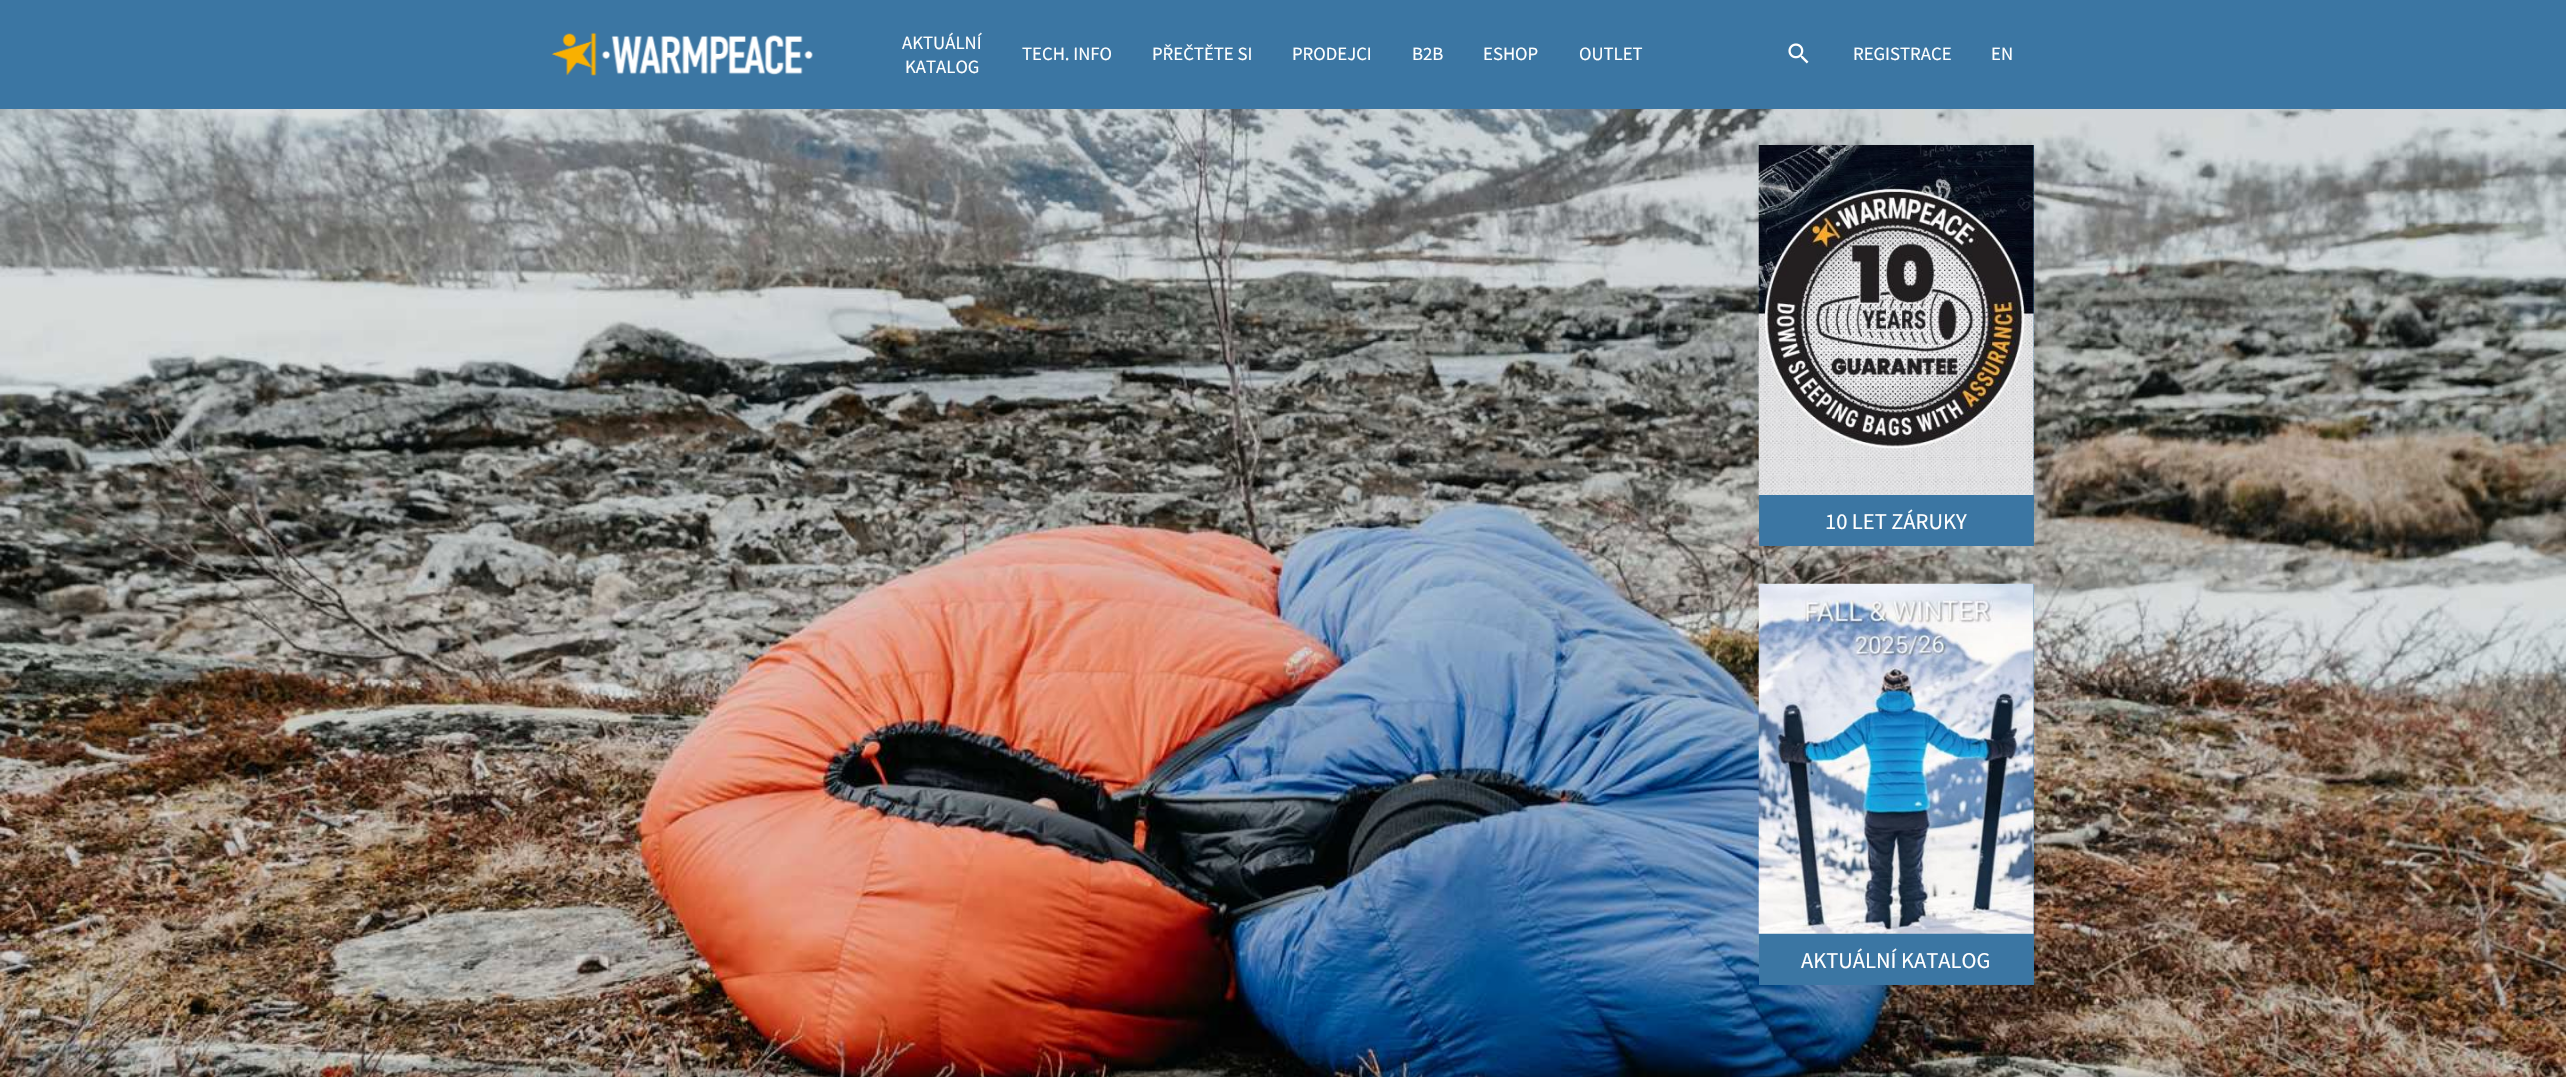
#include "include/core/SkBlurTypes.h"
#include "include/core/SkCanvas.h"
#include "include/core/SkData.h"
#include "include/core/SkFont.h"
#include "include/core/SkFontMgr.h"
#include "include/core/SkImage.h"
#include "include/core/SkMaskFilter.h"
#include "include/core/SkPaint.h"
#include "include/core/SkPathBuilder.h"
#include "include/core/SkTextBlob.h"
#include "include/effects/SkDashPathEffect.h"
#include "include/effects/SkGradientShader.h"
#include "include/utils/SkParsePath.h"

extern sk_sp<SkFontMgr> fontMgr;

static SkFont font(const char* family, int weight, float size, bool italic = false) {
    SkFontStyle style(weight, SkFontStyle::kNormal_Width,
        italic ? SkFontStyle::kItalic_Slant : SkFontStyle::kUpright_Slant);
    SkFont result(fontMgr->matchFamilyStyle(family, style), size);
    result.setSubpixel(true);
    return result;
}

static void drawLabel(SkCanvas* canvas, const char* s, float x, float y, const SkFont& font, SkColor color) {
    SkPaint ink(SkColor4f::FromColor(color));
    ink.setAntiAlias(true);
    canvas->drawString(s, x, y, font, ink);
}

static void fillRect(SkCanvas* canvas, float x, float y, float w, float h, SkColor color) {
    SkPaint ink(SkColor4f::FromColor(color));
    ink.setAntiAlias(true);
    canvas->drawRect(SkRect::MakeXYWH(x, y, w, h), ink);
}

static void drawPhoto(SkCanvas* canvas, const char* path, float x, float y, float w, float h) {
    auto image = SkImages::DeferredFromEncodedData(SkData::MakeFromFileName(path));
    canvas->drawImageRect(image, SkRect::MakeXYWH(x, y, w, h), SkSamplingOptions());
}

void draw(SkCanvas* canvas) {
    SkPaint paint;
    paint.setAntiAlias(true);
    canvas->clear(0xFFFFFFFF);
    drawPhoto(canvas, "assets/img1.png", 0, 109, 2566, 968);
    fillRect(canvas, 0, 0, 2566, 109, 0xFF3B76A3);
    drawPhoto(canvas, "assets/img2.png", 551, 32, 262, 44);
    SkFont font1 = font("Source Sans Pro", 400, 18.75f);
    drawLabel(canvas, "AKTUÁLNÍ", 902, 49, font1, 0xFFFFFFFF);
    drawLabel(canvas, "KATALOG", 905, 73, font1, 0xFFFFFFFF);
    drawLabel(canvas, "TECH. INFO", 1022, 60, font1, 0xFFFFFFFF);
    drawLabel(canvas, "PŘEČTĚTE SI", 1152, 60, font1, 0xFFFFFFFF);
    drawLabel(canvas, "PRODEJCI", 1292, 60, font1, 0xFFFFFFFF);
    drawLabel(canvas, "B2B", 1412, 60, font1, 0xFFFFFFFF);
    drawLabel(canvas, "ESHOP", 1483, 60, font1, 0xFFFFFFFF);
    drawLabel(canvas, "OUTLET", 1579, 60, font1, 0xFFFFFFFF);
    drawPhoto(canvas, "assets/img3.png", 1788, 43, 21, 21);
    drawLabel(canvas, "REGISTRACE", 1853, 60, font1, 0xFFFFFFFF);
    drawLabel(canvas, "EN", 1991, 60, font1, 0xFFFFFFFF);
    fillRect(canvas, 2033, 145, 1, 350, 0xFF3B76A3);
    drawPhoto(canvas, "assets/img4.png", 1758, 145, 276, 350);
    fillRect(canvas, 1759, 495, 275, 51, 0xFF3B76A3);
    SkFont font2 = font("Source Sans Pro", 400, 22.5f);
    drawLabel(canvas, "10 LET ZÁRUKY", 1825, 529, font2, 0xFFFFFFFF);
    fillRect(canvas, 1759, 584, 275, 401, 0xFF3B76A3);
    drawPhoto(canvas, "assets/img5.png", 1758, 583, 276, 351);
    drawLabel(canvas, "AKTUÁLNÍ KATALOG", 1801, 968, font2, 0xFFFFFFFF);
}
